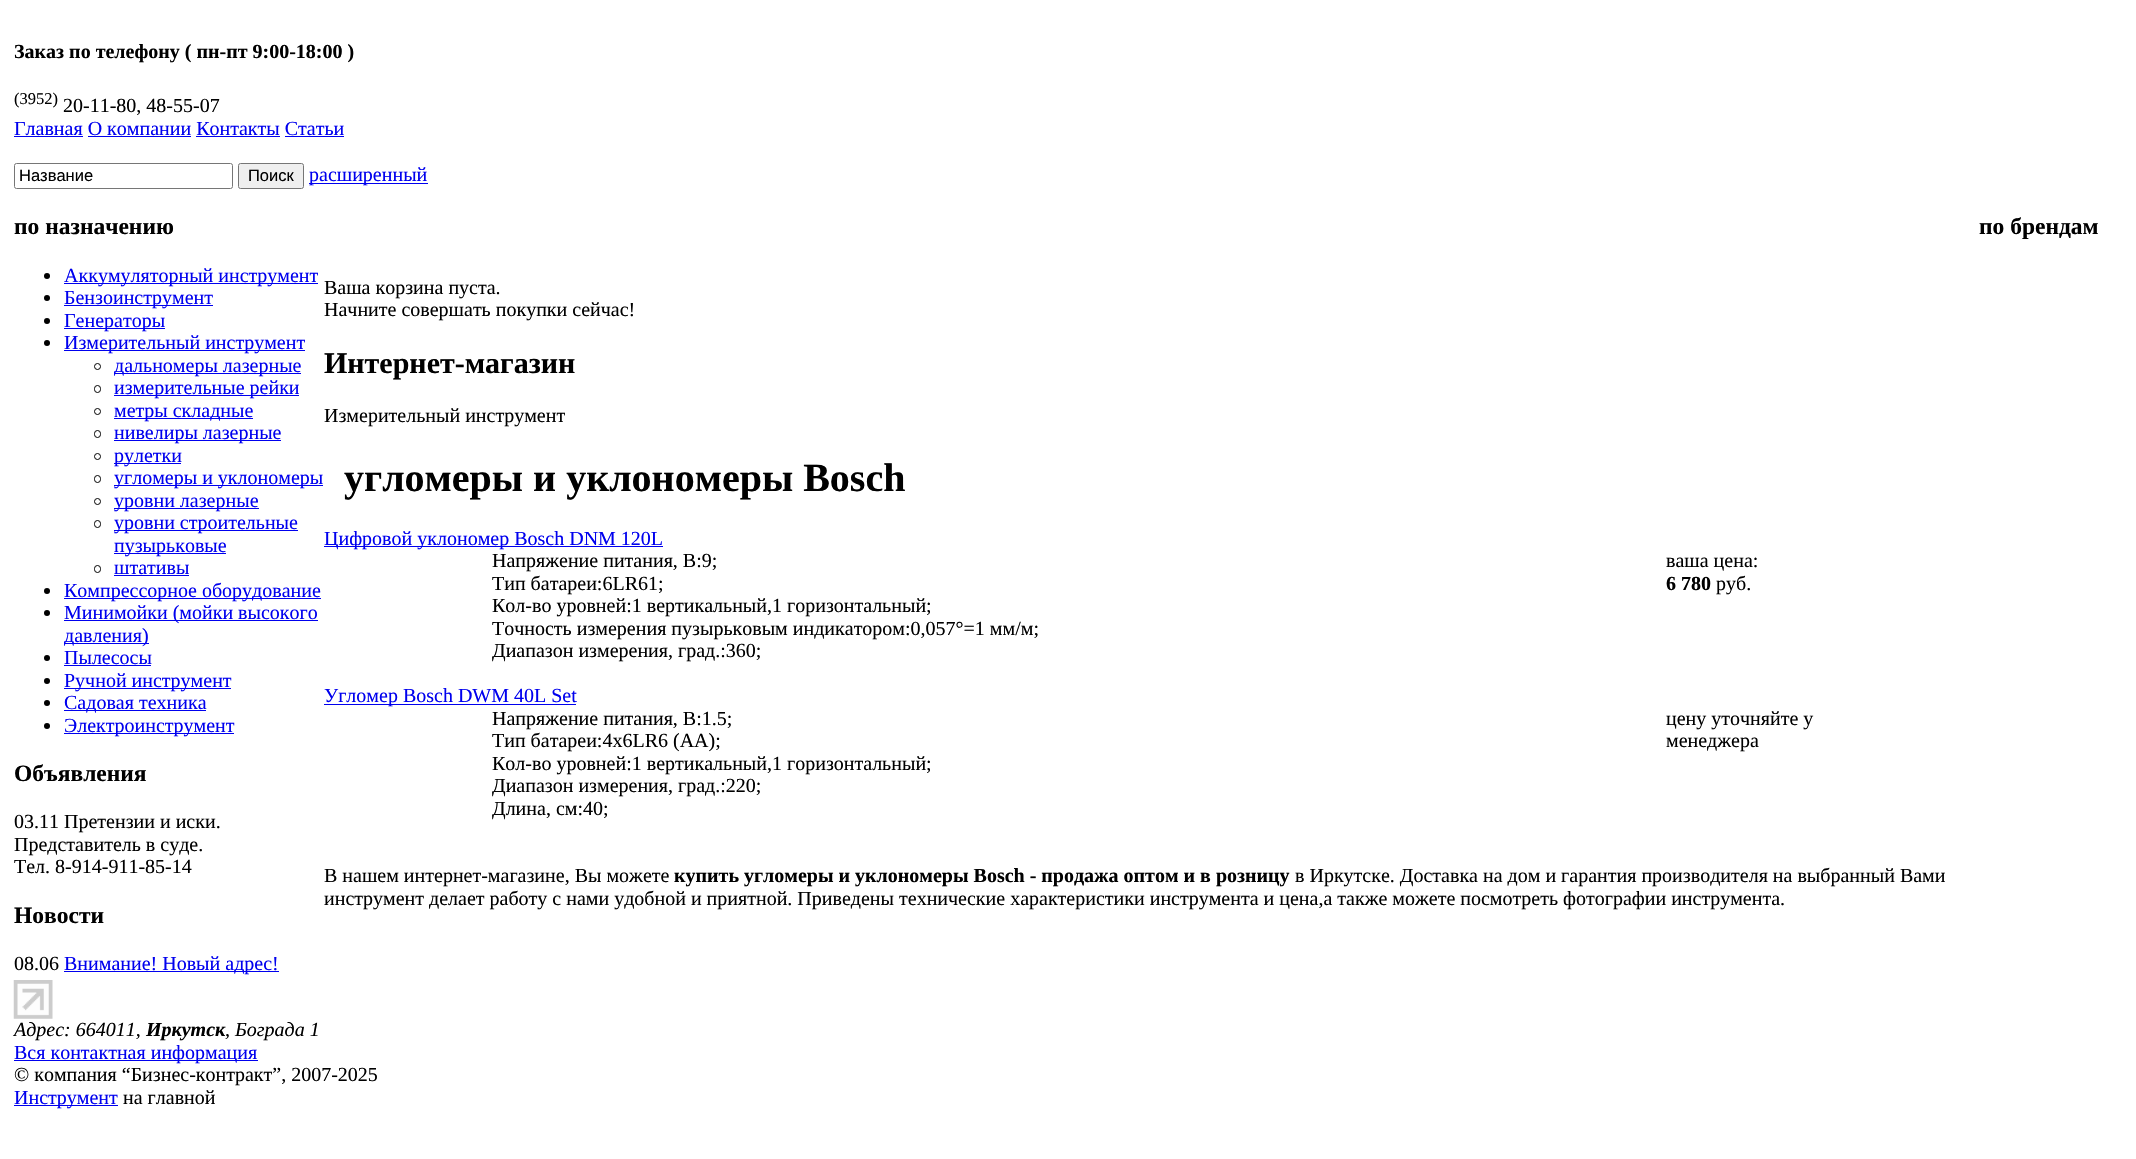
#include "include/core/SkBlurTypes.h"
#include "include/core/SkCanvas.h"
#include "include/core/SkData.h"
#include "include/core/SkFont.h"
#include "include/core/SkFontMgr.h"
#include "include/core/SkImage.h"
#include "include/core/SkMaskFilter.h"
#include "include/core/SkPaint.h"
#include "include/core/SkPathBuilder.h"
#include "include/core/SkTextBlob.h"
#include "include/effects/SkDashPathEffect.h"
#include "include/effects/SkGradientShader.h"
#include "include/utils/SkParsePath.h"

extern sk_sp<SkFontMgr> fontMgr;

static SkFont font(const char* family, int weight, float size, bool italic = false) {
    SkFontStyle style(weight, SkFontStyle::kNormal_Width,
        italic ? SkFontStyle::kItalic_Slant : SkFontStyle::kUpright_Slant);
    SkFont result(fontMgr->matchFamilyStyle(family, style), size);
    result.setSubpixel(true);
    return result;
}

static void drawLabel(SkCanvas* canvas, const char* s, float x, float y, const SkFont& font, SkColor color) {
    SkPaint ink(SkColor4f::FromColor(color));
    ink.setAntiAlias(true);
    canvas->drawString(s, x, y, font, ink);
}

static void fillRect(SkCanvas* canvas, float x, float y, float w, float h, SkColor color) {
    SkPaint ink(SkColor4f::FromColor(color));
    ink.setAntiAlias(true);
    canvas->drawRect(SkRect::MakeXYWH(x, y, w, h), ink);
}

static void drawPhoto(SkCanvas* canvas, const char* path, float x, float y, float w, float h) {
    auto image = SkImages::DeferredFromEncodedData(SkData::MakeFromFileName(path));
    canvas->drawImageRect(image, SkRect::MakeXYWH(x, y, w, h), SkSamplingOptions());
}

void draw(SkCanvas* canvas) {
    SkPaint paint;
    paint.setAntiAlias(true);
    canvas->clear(0xFFFFFFFF);
    SkFont font1 = font("Liberation Serif", 700, 20);
    drawLabel(canvas, "Заказ по телефону ( пн-пт 9:00-18:00 )", 14, 58, font1, 0xFF000000);
    SkFont font2 = font("Liberation Serif", 400, 16.5f);
    drawLabel(canvas, "(3952)", 14, 104, font2, 0xFF000000);
    SkFont font3 = font("Liberation Serif", 400, 20);
    drawLabel(canvas, "20-11-80, 48-55-07", 63, 112, font3, 0xFF000000);
    drawLabel(canvas, "Главная О компании Контакты Статьи", 14, 135, font3, 0xFF0000EE);
    fillRect(canvas, 14, 136, 69, 1, 0xFF0000EE);
    fillRect(canvas, 88, 136, 103, 1, 0xFF0000EE);
    fillRect(canvas, 196, 136, 84, 1, 0xFF0000EE);
    fillRect(canvas, 285, 136, 59, 1, 0xFF0000EE);
    paint.setStroke(true);
    paint.setStrokeWidth(1);
    paint.setColor(0xFF767676);
    canvas->drawRoundRect(SkRect::MakeXYWH(14.5f, 163.5f, 218, 25), 2, 2, paint);
    SkFont font4 = font("Liberation Sans", 400, 16.5f);
    drawLabel(canvas, "Название", 19, 181, font4, 0xFF000000);
    paint.setStroke(false);
    paint.setColor(0xFFEFEFEF);
    canvas->drawRoundRect(SkRect::MakeXYWH(238.5f, 163.5f, 65, 25), 2, 2, paint);
    paint.setStroke(true);
    paint.setColor(0xFF767676);
    canvas->drawRoundRect(SkRect::MakeXYWH(238.5f, 163.5f, 65, 25), 2, 2, paint);
    drawLabel(canvas, "Поиск", 248, 181, font4, 0xFF000000);
    fillRect(canvas, 309, 183, 119, 1, 0xFF0000EE);
    drawLabel(canvas, "расширенный", 309, 181, font3, 0xFF0000EE);
    SkFont font5 = font("Liberation Serif", 700, 23.5f);
    drawLabel(canvas, "по назначению", 14, 234, font5, 0xFF000000);
    paint.setStroke(false);
    paint.setColor(0xFF000000);
    canvas->drawCircle(47, 276, 3, paint);
    fillRect(canvas, 64, 283, 254, 1, 0xFF0000EE);
    drawLabel(canvas, "Аккумуляторный инструмент", 64, 282, font3, 0xFF0000EE);
    canvas->drawCircle(47, 298, 3, paint);
    fillRect(canvas, 64, 305, 149, 1, 0xFF0000EE);
    drawLabel(canvas, "Бензоинструмент", 64, 304, font3, 0xFF0000EE);
    canvas->drawCircle(47, 321, 3, paint);
    fillRect(canvas, 64, 328, 101, 1, 0xFF0000EE);
    drawLabel(canvas, "Генераторы", 64, 327, font3, 0xFF0000EE);
    canvas->drawCircle(47, 343, 3, paint);
    fillRect(canvas, 64, 350, 241, 1, 0xFF0000EE);
    drawLabel(canvas, "Измерительный инструмент", 64, 349, font3, 0xFF0000EE);
    paint.setStroke(true);
    canvas->drawCircle(97.5f, 366.5f, 3, paint);
    fillRect(canvas, 114, 373, 187, 1, 0xFF0000EE);
    drawLabel(canvas, "дальномеры лазерные", 114, 372, font3, 0xFF0000EE);
    canvas->drawRoundRect(SkRect::MakeXYWH(94.5f, 385.5f, 6, 7), 3, 3, paint);
    fillRect(canvas, 114, 395, 185, 1, 0xFF0000EE);
    drawLabel(canvas, "измерительные рейки", 114, 394, font3, 0xFF0000EE);
    canvas->drawCircle(97.5f, 411.5f, 3, paint);
    fillRect(canvas, 114, 418, 139, 1, 0xFF0000EE);
    drawLabel(canvas, "метры складные", 114, 417, font3, 0xFF0000EE);
    canvas->drawRoundRect(SkRect::MakeXYWH(94.5f, 430.5f, 6, 7), 3, 3, paint);
    fillRect(canvas, 114, 440, 167, 1, 0xFF0000EE);
    drawLabel(canvas, "нивелиры лазерные", 114, 439, font3, 0xFF0000EE);
    canvas->drawCircle(97.5f, 456.5f, 3, paint);
    fillRect(canvas, 114, 463, 67, 1, 0xFF0000EE);
    drawLabel(canvas, "рулетки", 114, 462, font3, 0xFF0000EE);
    canvas->drawRoundRect(SkRect::MakeXYWH(94.5f, 475.5f, 6, 7), 3, 3, paint);
    fillRect(canvas, 114, 485, 209, 1, 0xFF0000EE);
    drawLabel(canvas, "угломеры и уклономеры", 114, 484, font3, 0xFF0000EE);
    canvas->drawCircle(97.5f, 501.5f, 3, paint);
    fillRect(canvas, 114, 508, 145, 1, 0xFF0000EE);
    drawLabel(canvas, "уровни лазерные", 114, 507, font3, 0xFF0000EE);
    canvas->drawRoundRect(SkRect::MakeXYWH(94.5f, 520.5f, 6, 7), 3, 3, paint);
    fillRect(canvas, 114, 530, 184, 1, 0xFF0000EE);
    drawLabel(canvas, "уровни строительные", 114, 529, font3, 0xFF0000EE);
    fillRect(canvas, 114, 553, 112, 1, 0xFF0000EE);
    drawLabel(canvas, "пузырьковые", 114, 552, font3, 0xFF0000EE);
    canvas->drawRoundRect(SkRect::MakeXYWH(94.5f, 565.5f, 6, 7), 3, 3, paint);
    drawLabel(canvas, "штативы", 114, 574, font3, 0xFF0000EE);
    fillRect(canvas, 114, 575, 75, 1, 0xFF0000EE);
    paint.setStroke(false);
    canvas->drawCircle(47, 591, 3, paint);
    fillRect(canvas, 64, 598, 257, 1, 0xFF0000EE);
    drawLabel(canvas, "Компрессорное оборудование", 64, 597, font3, 0xFF0000EE);
    canvas->drawCircle(47, 613, 3, paint);
    fillRect(canvas, 64, 620, 254, 1, 0xFF0000EE);
    drawLabel(canvas, "Минимойки (мойки высокого", 64, 619, font3, 0xFF0000EE);
    fillRect(canvas, 64, 643, 85, 1, 0xFF0000EE);
    drawLabel(canvas, "давления)", 64, 642, font3, 0xFF0000EE);
    canvas->drawCircle(47, 658, 3, paint);
    drawLabel(canvas, "Пылесосы", 64, 664, font3, 0xFF0000EE);
    fillRect(canvas, 64, 665, 87, 1, 0xFF0000EE);
    canvas->drawCircle(47, 681, 3, paint);
    fillRect(canvas, 64, 688, 167, 1, 0xFF0000EE);
    drawLabel(canvas, "Ручной инструмент", 64, 687, font3, 0xFF0000EE);
    canvas->drawCircle(47, 703, 3, paint);
    fillRect(canvas, 64, 710, 142, 1, 0xFF0000EE);
    drawLabel(canvas, "Садовая техника", 64, 709, font3, 0xFF0000EE);
    canvas->drawCircle(47, 726, 3, paint);
    fillRect(canvas, 64, 733, 170, 1, 0xFF0000EE);
    drawLabel(canvas, "Электроинструмент", 64, 732, font3, 0xFF0000EE);
    drawLabel(canvas, "Объявления", 14, 781, font5, 0xFF000000);
    drawLabel(canvas, "03.11 Претензии и иски.", 14, 828, font3, 0xFF000000);
    drawLabel(canvas, "Представитель в суде.", 14, 851, font3, 0xFF000000);
    drawLabel(canvas, "Тел. 8-914-911-85-14", 14, 873, font3, 0xFF000000);
    drawLabel(canvas, "Новости", 14, 923, font5, 0xFF000000);
    drawLabel(canvas, "08.06", 14, 970, font3, 0xFF000000);
    fillRect(canvas, 64, 971, 215, 1, 0xFF0000EE);
    drawLabel(canvas, "Внимание! Новый адрес!", 64, 970, font3, 0xFF0000EE);
    drawLabel(canvas, "по брендам", 1979, 234, font5, 0xFF000000);
    drawLabel(canvas, "Ваша корзина пуста.", 324, 294, font3, 0xFF000000);
    drawLabel(canvas, "Начните совершать покупки сейчас!", 324, 316, font3, 0xFF000000);
    SkFont font6 = font("Liberation Serif", 700, 30);
    drawLabel(canvas, "Интернет-магазин", 324, 373, font6, 0xFF000000);
    drawLabel(canvas, "Измерительный инструмент", 324, 422, font3, 0xFF000000);
    SkFont font7 = font("Liberation Serif", 700, 40);
    drawLabel(canvas, "угломеры и уклономеры Bosch", 344, 491, font7, 0xFF000000);
    fillRect(canvas, 324, 546, 339, 1, 0xFF0000EE);
    drawLabel(canvas, "Цифровой уклономер Bosch DNM 120L", 324, 545, font3, 0xFF0000EE);
    drawLabel(canvas, "Напряжение питания, В:9;", 492, 567, font3, 0xFF000000);
    drawLabel(canvas, "Тип батареи:6LR61;", 492, 590, font3, 0xFF000000);
    drawLabel(canvas, "Кол-во уровней:1 вертикальный,1 горизонтальный;", 492, 612, font3, 0xFF000000);
    drawLabel(canvas, "Точность измерения пузырьковым индикатором:0,057°=1 мм/м;", 492, 635, font3, 0xFF000000);
    drawLabel(canvas, "Диапазон измерения, град.:360;", 492, 657, font3, 0xFF000000);
    drawLabel(canvas, "ваша цена:", 1666, 567, font3, 0xFF000000);
    drawLabel(canvas, "6 780", 1666, 590, font1, 0xFF000000);
    drawLabel(canvas, "руб.", 1716, 590, font3, 0xFF000000);
    fillRect(canvas, 324, 704, 252, 1, 0xFF0000EE);
    drawLabel(canvas, "Угломер Bosch DWM 40L Set", 324, 702, font3, 0xFF0000EE);
    drawLabel(canvas, "Напряжение питания, В:1.5;", 492, 725, font3, 0xFF000000);
    drawLabel(canvas, "Тип батареи:4x6LR6 (AA);", 492, 747, font3, 0xFF000000);
    drawLabel(canvas, "Кол-во уровней:1 вертикальный,1 горизонтальный;", 492, 770, font3, 0xFF000000);
    drawLabel(canvas, "Диапазон измерения, град.:220;", 492, 792, font3, 0xFF000000);
    drawLabel(canvas, "Длина, см:40;", 492, 815, font3, 0xFF000000);
    drawLabel(canvas, "цену уточняйте у", 1666, 725, font3, 0xFF000000);
    drawLabel(canvas, "менеджера", 1666, 747, font3, 0xFF000000);
    drawLabel(canvas, "В нашем интернет-магазине, Вы можете", 324, 882, font3, 0xFF000000);
    drawLabel(canvas, "купить угломеры и уклономеры Bosch - продажа оптом и в розницу", 674, 882, font1, 0xFF000000);
    drawLabel(canvas, "в Иркутске. Доставка на дом и гарантия производителя на выбранный Вами", 1295, 882, font3, 0xFF000000);
    drawLabel(canvas, "инструмент делает работу с нами удобной и приятной. Приведены технические характеристики инструмента и цена,а также можете посмотреть фотографии инструмента.", 324, 905, font3, 0xFF000000);
    drawPhoto(canvas, "assets/img1.png", 13, 980, 40, 39);
    SkFont font8 = font("Liberation Serif", 400, 20, true);
    drawLabel(canvas, "Aдрес: 664011,", 14, 1036, font8, 0xFF000000);
    SkFont font9 = font("Liberation Serif", 700, 20, true);
    drawLabel(canvas, "Иркутск", 146, 1036, font9, 0xFF000000);
    drawLabel(canvas, ", Бограда 1", 225, 1036, font8, 0xFF000000);
    fillRect(canvas, 14, 1060, 244, 1, 0xFF0000EE);
    drawLabel(canvas, "Вся контактная информация", 14, 1059, font3, 0xFF0000EE);
    drawLabel(canvas, "© компания “Бизнес-контракт”, 2007-2025", 14, 1081, font3, 0xFF000000);
    fillRect(canvas, 14, 1105, 104, 1, 0xFF0000EE);
    drawLabel(canvas, "Инструмент", 14, 1104, font3, 0xFF0000EE);
    drawLabel(canvas, "на главной", 123, 1104, font3, 0xFF000000);
}
